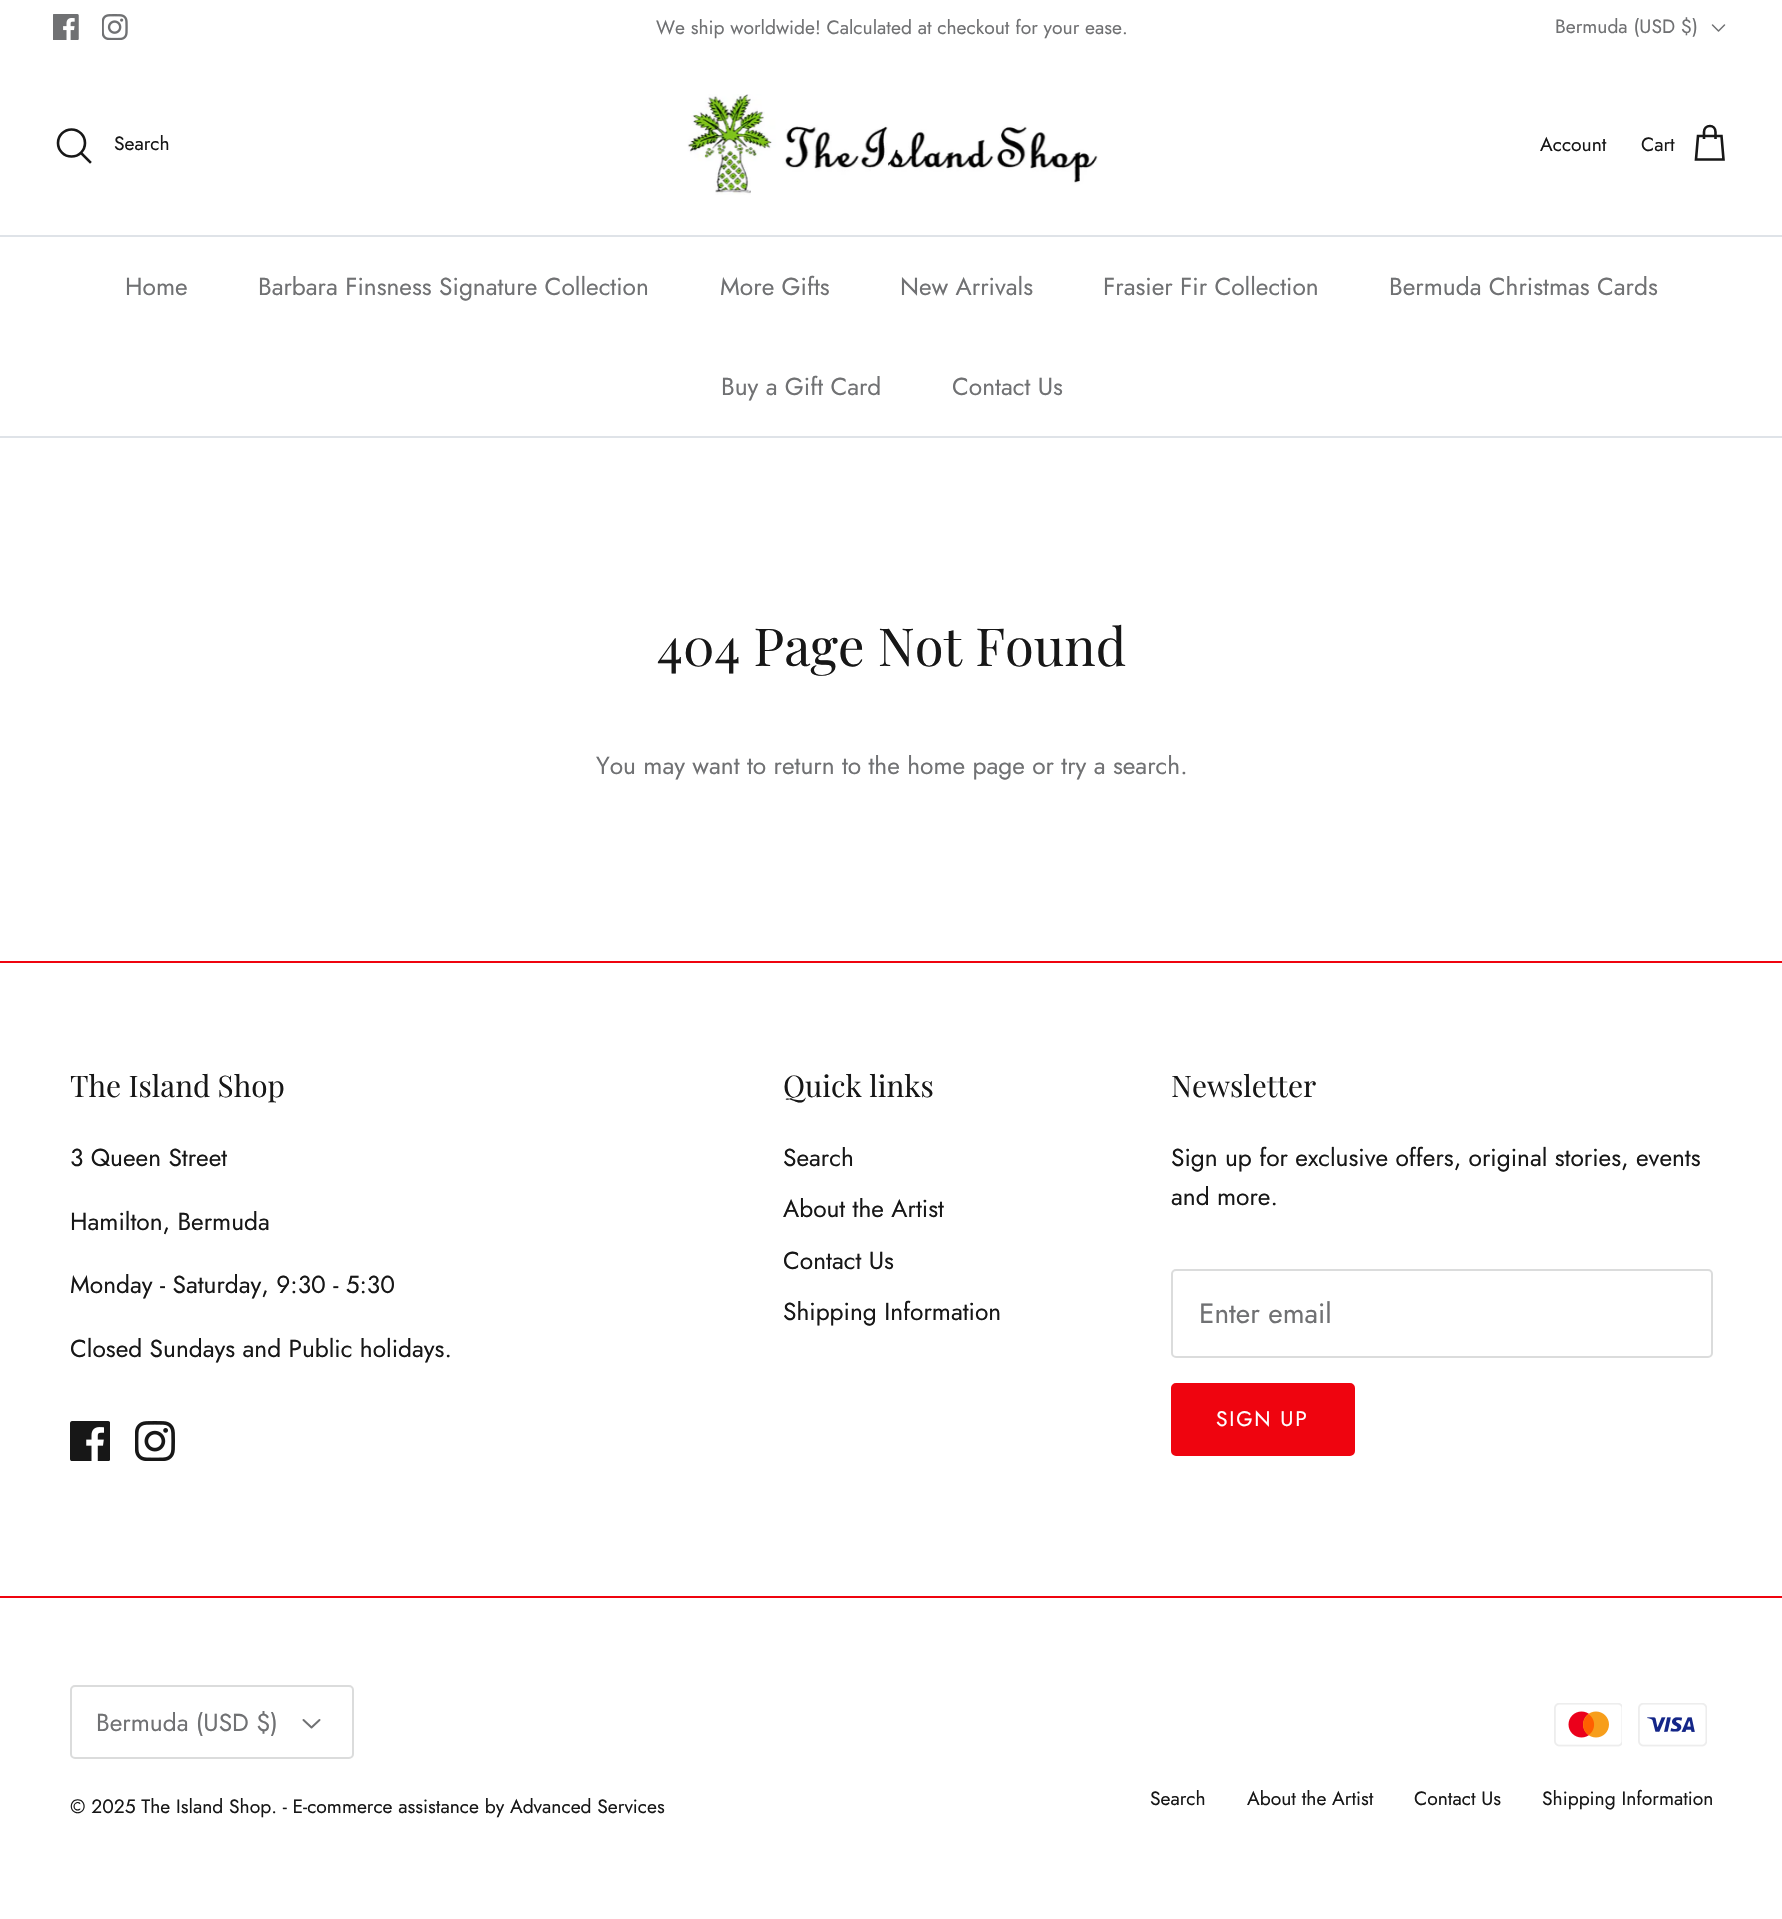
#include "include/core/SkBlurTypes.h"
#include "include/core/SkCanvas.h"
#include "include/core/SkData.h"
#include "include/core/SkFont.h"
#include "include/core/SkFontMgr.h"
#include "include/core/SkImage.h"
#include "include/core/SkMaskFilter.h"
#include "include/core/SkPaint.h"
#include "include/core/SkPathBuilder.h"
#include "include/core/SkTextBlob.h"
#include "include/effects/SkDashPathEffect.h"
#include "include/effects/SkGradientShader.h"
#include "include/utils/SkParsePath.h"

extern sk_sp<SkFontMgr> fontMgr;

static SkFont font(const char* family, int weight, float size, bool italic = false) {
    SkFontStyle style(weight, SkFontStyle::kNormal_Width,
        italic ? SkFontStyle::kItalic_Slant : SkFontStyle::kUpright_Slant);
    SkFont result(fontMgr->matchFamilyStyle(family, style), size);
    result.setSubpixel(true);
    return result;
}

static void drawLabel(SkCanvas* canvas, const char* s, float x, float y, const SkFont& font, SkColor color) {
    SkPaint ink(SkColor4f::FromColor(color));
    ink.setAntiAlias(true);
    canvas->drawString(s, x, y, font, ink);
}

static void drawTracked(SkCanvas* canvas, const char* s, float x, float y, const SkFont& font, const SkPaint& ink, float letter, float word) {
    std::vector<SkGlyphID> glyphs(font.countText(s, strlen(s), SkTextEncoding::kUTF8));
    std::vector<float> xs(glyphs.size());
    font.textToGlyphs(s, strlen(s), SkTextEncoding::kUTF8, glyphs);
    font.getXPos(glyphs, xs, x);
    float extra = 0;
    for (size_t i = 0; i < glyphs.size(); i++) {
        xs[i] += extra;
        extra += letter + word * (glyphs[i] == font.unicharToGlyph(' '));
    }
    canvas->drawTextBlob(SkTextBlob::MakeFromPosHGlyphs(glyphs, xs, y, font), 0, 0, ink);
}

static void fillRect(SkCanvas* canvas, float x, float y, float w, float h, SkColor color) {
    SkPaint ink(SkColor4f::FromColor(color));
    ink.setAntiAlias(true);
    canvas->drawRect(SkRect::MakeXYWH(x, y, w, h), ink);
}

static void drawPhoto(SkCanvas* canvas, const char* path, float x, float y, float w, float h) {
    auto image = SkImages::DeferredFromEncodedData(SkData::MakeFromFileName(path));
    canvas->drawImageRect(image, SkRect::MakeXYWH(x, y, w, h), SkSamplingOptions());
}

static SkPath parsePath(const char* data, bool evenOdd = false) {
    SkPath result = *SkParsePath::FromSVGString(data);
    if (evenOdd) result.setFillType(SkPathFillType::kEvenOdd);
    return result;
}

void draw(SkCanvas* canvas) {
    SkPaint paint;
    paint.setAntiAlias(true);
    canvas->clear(0xFFFFFFFF);
    drawPhoto(canvas, "assets/img1.png", 53, 14, 26, 26);
    drawPhoto(canvas, "assets/img2.png", 102, 14, 26, 26);
    SkFont font1 = font("Jost", 400, 19.25f);
    drawLabel(canvas, "We ship worldwide! Calculated at checkout for your ease.", 656, 34, font1, 0xFF707173);
    drawLabel(canvas, "Bermuda (USD $)", 1555, 33, font1, 0xFF707173);
    paint.setStroke(true);
    paint.setStrokeWidth(1.5f);
    paint.setStrokeCap(SkPaint::kRound_Cap);
    paint.setStrokeJoin(SkPaint::kRound_Join);
    paint.setColor(0xFF707173);
    canvas->drawPath(parsePath("M1712.5 25L1718.5 31L1724.5 25"), paint);
    fillRect(canvas, 0, 235, 1782, 2, 0xFFDFE3E8);
    paint.setStrokeWidth(2.6f);
    paint.setStrokeCap(SkPaint::kButt_Cap);
    paint.setStrokeJoin(SkPaint::kMiter_Join);
    paint.setColor(0xFF171717);
    canvas->drawCircle(71.5f, 143, 13.5f, paint);
    drawLabel(canvas, "Search", 114, 150, font1, 0xFF171717);
    paint.setStrokeCap(SkPaint::kSquare_Cap);
    canvas->drawPath(parsePath("M82 154L90 162"), paint);
    drawPhoto(canvas, "assets/img3.png", 687, 94, 411, 101);
    drawLabel(canvas, "Account", 1540, 151, font1, 0xFF171717);
    drawLabel(canvas, "Cart", 1641, 151, font1, 0xFF171717);
    paint.setStrokeCap(SkPaint::kButt_Cap);
    canvas->drawPath(parsePath("M1715.5 139V132C1715.5 128.5 1713 126 1710 126C1706.5 126 1704 128.5 1704 132V139M1698 136H1721.5L1723.5 159.5H1696Z"), paint);
    fillRect(canvas, 0, 436, 1782, 2, 0xFFDFE3E8);
    SkFont font2 = font("Jost", 400, 24.5f);
    drawLabel(canvas, "Home", 125, 295, font2, 0xFF707173);
    drawLabel(canvas, "Barbara Finsness Signature Collection", 258, 295, font2, 0xFF707173);
    drawLabel(canvas, "More Gifts", 720, 295, font2, 0xFF707173);
    drawLabel(canvas, "New Arrivals", 900, 295, font2, 0xFF707173);
    drawLabel(canvas, "Frasier Fir Collection", 1103, 295, font2, 0xFF707173);
    drawLabel(canvas, "Bermuda Christmas Cards", 1389, 295, font2, 0xFF707173);
    drawLabel(canvas, "Buy a Gift Card", 721, 395, font2, 0xFF707173);
    drawLabel(canvas, "Contact Us", 952, 395, font2, 0xFF707173);
    SkFont font3 = font("Playfair Display", 400, 52.5f);
    drawLabel(canvas, "404 Page Not Found", 657, 666, font3, 0xFF171717);
    drawLabel(canvas, "You may want to return to the home page or try a search.", 596, 774, font2, 0xFF707173);
    fillRect(canvas, 0, 961, 1782, 2, 0xFFEF040F);
    SkFont font4 = font("Playfair Display", 400, 29.75f);
    drawLabel(canvas, "The Island Shop", 70, 1097, font4, 0xFF171717);
    drawLabel(canvas, "3 Queen Street", 70, 1166, font2, 0xFF171717);
    drawLabel(canvas, "Hamilton, Bermuda", 70, 1230, font2, 0xFF171717);
    drawLabel(canvas, "Monday - Saturday, 9:30 - 5:30", 70, 1293, font2, 0xFF171717);
    drawLabel(canvas, "Closed Sundays and Public holidays.", 70, 1357, font2, 0xFF171717);
    drawPhoto(canvas, "assets/img4.png", 70, 1421, 40, 40);
    drawPhoto(canvas, "assets/img5.png", 135, 1421, 40, 40);
    drawLabel(canvas, "Quick links", 783, 1097, font4, 0xFF171717);
    drawLabel(canvas, "Search", 783, 1166, font2, 0xFF171717);
    drawLabel(canvas, "About the Artist", 783, 1217, font2, 0xFF171717);
    drawLabel(canvas, "Contact Us", 783, 1269, font2, 0xFF171717);
    drawLabel(canvas, "Shipping Information", 783, 1320, font2, 0xFF171717);
    drawLabel(canvas, "Newsletter", 1171, 1097, font4, 0xFF171717);
    drawLabel(canvas, "Sign up for exclusive offers, original stories, events", 1171, 1166, font2, 0xFF171717);
    drawLabel(canvas, "and more.", 1171, 1205, font2, 0xFF171717);
    paint.setStrokeWidth(2);
    paint.setColor(0xFFDBDCDC);
    canvas->drawRoundRect(SkRect::MakeXYWH(1172, 1270, 540, 87), 4, 4, paint);
    SkFont font5 = font("Jost", 400, 28);
    drawLabel(canvas, "Enter email", 1199, 1323, font5, 0xFF707173);
    paint.setStroke(false);
    paint.setColor(0xFFEF040F);
    canvas->drawRoundRect(SkRect::MakeXYWH(1172, 1384, 182, 71), 4, 4, paint);
    paint.setStroke(true);
    canvas->drawRoundRect(SkRect::MakeXYWH(1172, 1384, 182, 71), 4, 4, paint);
    SkFont font6 = font("Jost", 400, 21);
    paint.setStroke(false);
    paint.setColor(0xFFFFFFFF);
    drawTracked(canvas, "SIGN UP", 1216, 1426, font6, paint, 1.75f, 0);
    fillRect(canvas, 0, 1596, 1782, 2, 0xFFEF040F);
    paint.setStroke(true);
    paint.setColor(0xFFDBDCDC);
    canvas->drawRoundRect(SkRect::MakeXYWH(71, 1686, 282, 72), 4, 4, paint);
    drawLabel(canvas, "Bermuda (USD $)", 96, 1731, font2, 0xFF707173);
    paint.setStrokeCap(SkPaint::kRound_Cap);
    paint.setStrokeJoin(SkPaint::kRound_Join);
    paint.setColor(0xFF707173);
    canvas->drawPath(parsePath("M303.5 1720L311.5 1727.5L319.5 1720"), paint);
    drawLabel(canvas, "© 2025 The Island Shop. - E-commerce assistance by Advanced Services", 70, 1813, font1, 0xFF171717);
    drawPhoto(canvas, "assets/img6.png", 1554, 1703, 68, 44);
    drawPhoto(canvas, "assets/img7.png", 1638, 1703, 69, 44);
    drawLabel(canvas, "Search", 1150, 1805, font1, 0xFF171717);
    drawLabel(canvas, "About the Artist", 1247, 1805, font1, 0xFF171717);
    drawLabel(canvas, "Contact Us", 1414, 1805, font1, 0xFF171717);
    drawLabel(canvas, "Shipping Information", 1542, 1805, font1, 0xFF171717);
}
